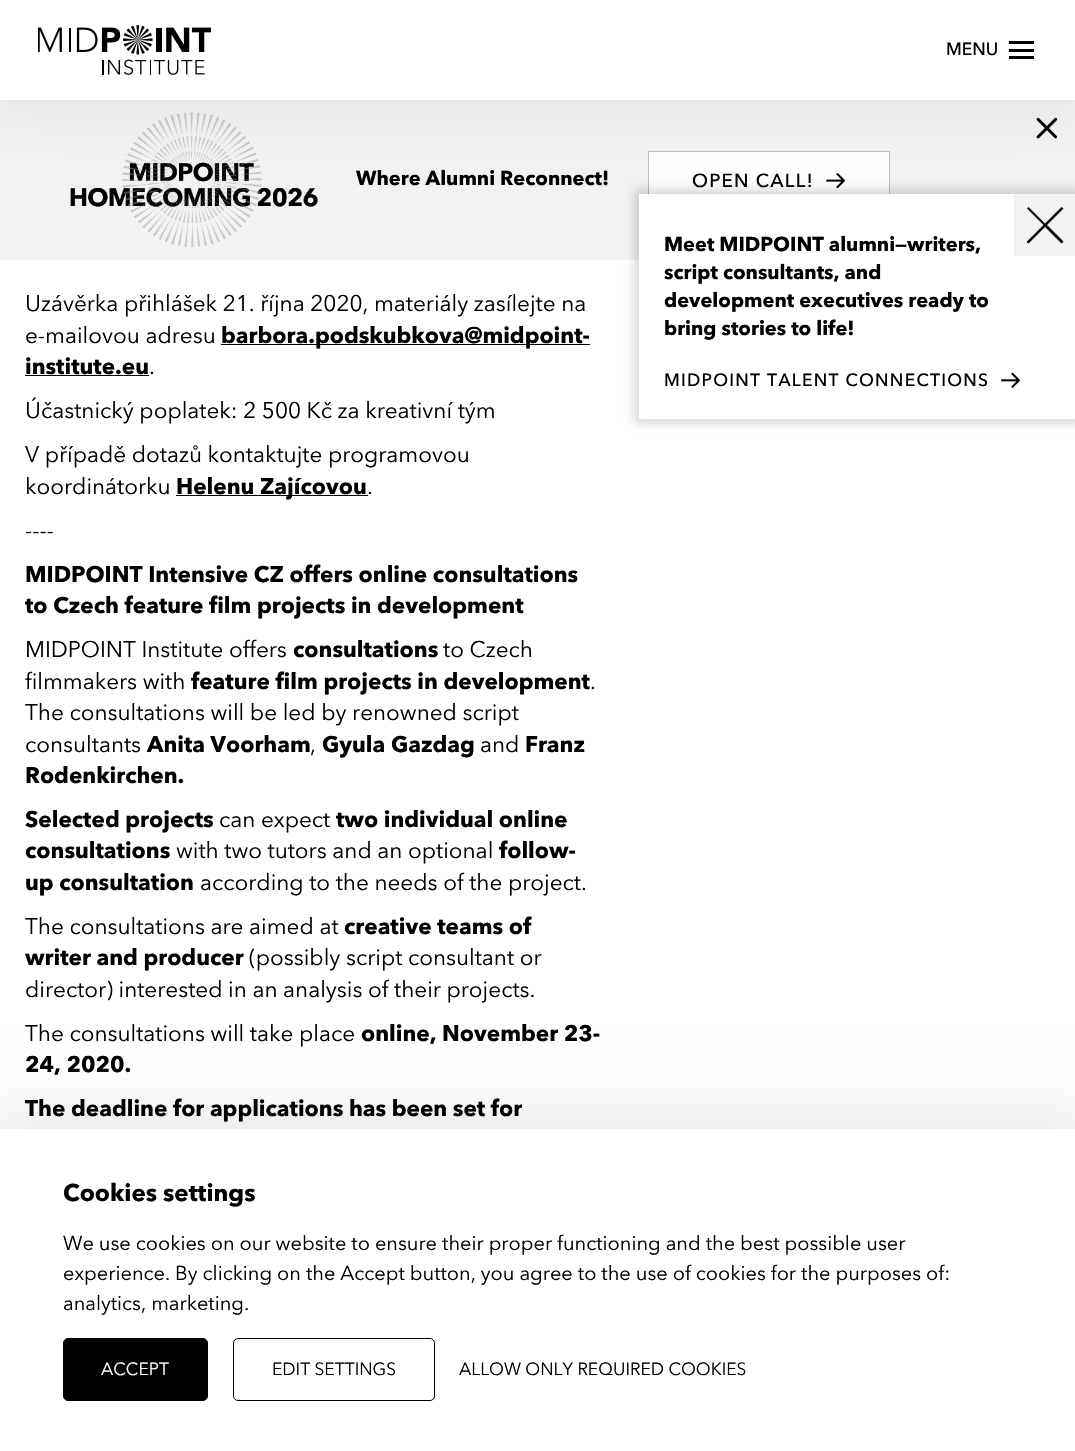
#include "include/core/SkBlurTypes.h"
#include "include/core/SkCanvas.h"
#include "include/core/SkData.h"
#include "include/core/SkFont.h"
#include "include/core/SkFontMgr.h"
#include "include/core/SkImage.h"
#include "include/core/SkMaskFilter.h"
#include "include/core/SkPaint.h"
#include "include/core/SkPathBuilder.h"
#include "include/core/SkTextBlob.h"
#include "include/effects/SkDashPathEffect.h"
#include "include/effects/SkGradientShader.h"
#include "include/utils/SkParsePath.h"

extern sk_sp<SkFontMgr> fontMgr;

static SkFont font(const char* family, int weight, float size, bool italic = false) {
    SkFontStyle style(weight, SkFontStyle::kNormal_Width,
        italic ? SkFontStyle::kItalic_Slant : SkFontStyle::kUpright_Slant);
    SkFont result(fontMgr->matchFamilyStyle(family, style), size);
    result.setSubpixel(true);
    return result;
}

static void drawLabel(SkCanvas* canvas, const char* s, float x, float y, const SkFont& font, SkColor color) {
    SkPaint ink(SkColor4f::FromColor(color));
    ink.setAntiAlias(true);
    canvas->drawString(s, x, y, font, ink);
}

static void drawTracked(SkCanvas* canvas, const char* s, float x, float y, const SkFont& font, const SkPaint& ink, float letter, float word) {
    std::vector<SkGlyphID> glyphs(font.countText(s, strlen(s), SkTextEncoding::kUTF8));
    std::vector<float> xs(glyphs.size());
    font.textToGlyphs(s, strlen(s), SkTextEncoding::kUTF8, glyphs);
    font.getXPos(glyphs, xs, x);
    float extra = 0;
    for (size_t i = 0; i < glyphs.size(); i++) {
        xs[i] += extra;
        extra += letter + word * (glyphs[i] == font.unicharToGlyph(' '));
    }
    canvas->drawTextBlob(SkTextBlob::MakeFromPosHGlyphs(glyphs, xs, y, font), 0, 0, ink);
}

static void fillRect(SkCanvas* canvas, float x, float y, float w, float h, SkColor color) {
    SkPaint ink(SkColor4f::FromColor(color));
    ink.setAntiAlias(true);
    canvas->drawRect(SkRect::MakeXYWH(x, y, w, h), ink);
}

static void drawPhoto(SkCanvas* canvas, const char* path, float x, float y, float w, float h) {
    auto image = SkImages::DeferredFromEncodedData(SkData::MakeFromFileName(path));
    canvas->drawImageRect(image, SkRect::MakeXYWH(x, y, w, h), SkSamplingOptions());
}

static SkPath parsePath(const char* data, bool evenOdd = false) {
    SkPath result = *SkParsePath::FromSVGString(data);
    if (evenOdd) result.setFillType(SkPathFillType::kEvenOdd);
    return result;
}

void draw(SkCanvas* canvas) {
    SkPaint paint;
    paint.setAntiAlias(true);
    canvas->clear(0xFFFFFFFF);
    fillRect(canvas, 0, 100, 1075, 160, 0xFFF2F2F2);
    drawPhoto(canvas, "assets/img2.png", 70, 112, 248, 136);
    drawPhoto(canvas, "assets/img3.png", 1036, 117, 22, 22);
    fillRect(canvas, 649, 152, 240, 42, 0xFFFFFFFF);
    paint.setStroke(true);
    paint.setStrokeWidth(1);
    paint.setColor(0xFFBDBDBD);
    canvas->drawRect(SkRect::MakeXYWH(648.5f, 151.5f, 241, 56), paint);
    drawPhoto(canvas, "assets/img4.png", 826, 173, 19, 16);
    paint.setStroke(false);
    paint.setColor(0x26000000);
    paint.setMaskFilter(SkMaskFilter::MakeBlur(kNormal_SkBlurStyle, 4.5f));
    canvas->drawRect(SkRect::MakeXYWH(634, 189, 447, 235), paint);
    paint.setMaskFilter(nullptr);
    fillRect(canvas, 639, 194, 436, 225, 0xFFFFFFFF);
    fillRect(canvas, 1014, 194, 61, 62, 0xFFF2F2F2);
    paint.setColor(0x0D000000);
    paint.setMaskFilter(SkMaskFilter::MakeBlur(kNormal_SkBlurStyle, 31));
    canvas->drawRect(SkRect::MakeXYWH(-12, -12, 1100, 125), paint);
    paint.setMaskFilter(nullptr);
    fillRect(canvas, 0, 0, 1075, 100, 0xFFFFFFFF);
    drawPhoto(canvas, "assets/img1.png", 38, 25, 173, 50);
    SkFont font1 = font("Avenir Next", 500, 17.5f);
    drawLabel(canvas, "MENU", 946, 55, font1, 0xFF000000);
    fillRect(canvas, 1009, 56, 25, 3, 0xFF000000);
    fillRect(canvas, 1009, 41, 25, 3, 0xFF000000);
    fillRect(canvas, 1009, 49, 25, 3, 0xFF000000);
    SkFont font2 = font("Avenir Next", 700, 20);
    drawLabel(canvas, "Where Alumni Reconnect!", 356, 185, font2, 0xFF000000);
    SkFont font3 = font("Avenir Next", 500, 18.75f);
    paint.setColor(0xFF000000);
    drawTracked(canvas, "OPEN CALL!", 692, 187, font3, paint, 1.25f, 0);
    SkFont font4 = font("Avenir Next", 400, 22.5f);
    drawLabel(canvas, "Uzávěrka přihlášek 21. října 2020, materiály zasílejte na", 25, 311, font4, 0xFF000000);
    drawLabel(canvas, "e-mailovou adresu", 25, 343, font4, 0xFF000000);
    fillRect(canvas, 221, 344, 369, 1, 0xFF000000);
    SkFont font5 = font("Avenir Next", 700, 22.5f);
    drawLabel(canvas, "barbora.podskubkova@midpoint-", 221, 343, font5, 0xFF000000);
    drawLabel(canvas, "institute.eu", 25, 374, font5, 0xFF000000);
    fillRect(canvas, 25, 375, 124, 1, 0xFF000000);
    drawLabel(canvas, ".", 149, 374, font4, 0xFF000000);
    drawLabel(canvas, "Účastnický poplatek: 2 500 Kč za kreativní tým", 25, 418, font4, 0xFF000000);
    drawLabel(canvas, "V případě dotazů kontaktujte programovou", 25, 462, font4, 0xFF000000);
    drawLabel(canvas, "koordinátorku", 25, 494, font4, 0xFF000000);
    fillRect(canvas, 176, 495, 192, 1, 0xFF000000);
    drawLabel(canvas, "Helenu Zajícovou", 176, 494, font5, 0xFF000000);
    drawLabel(canvas, ".", 367, 494, font4, 0xFF000000);
    drawLabel(canvas, "----", 25, 538, font4, 0xFF000000);
    drawLabel(canvas, "MIDPOINT Intensive CZ offers online consultations", 25, 582, font5, 0xFF000000);
    drawLabel(canvas, "to Czech feature film projects in development", 25, 613, font5, 0xFF000000);
    drawLabel(canvas, "MIDPOINT Institute offers", 25, 657, font4, 0xFF000000);
    drawLabel(canvas, "consultations", 293, 657, font5, 0xFF000000);
    drawLabel(canvas, "to Czech", 443, 657, font4, 0xFF000000);
    drawLabel(canvas, "filmmakers with", 25, 689, font4, 0xFF000000);
    drawLabel(canvas, "feature film projects in development", 191, 689, font5, 0xFF000000);
    drawLabel(canvas, ".", 590, 689, font4, 0xFF000000);
    drawLabel(canvas, "The consultations will be led by renowned script", 25, 720, font4, 0xFF000000);
    drawLabel(canvas, "consultants", 25, 752, font4, 0xFF000000);
    drawLabel(canvas, "Anita Voorham", 147, 752, font5, 0xFF000000);
    drawLabel(canvas, ",", 310, 752, font4, 0xFF000000);
    drawLabel(canvas, "Gyula Gazdag", 322, 752, font5, 0xFF000000);
    drawLabel(canvas, "and", 480, 752, font4, 0xFF000000);
    drawLabel(canvas, "Franz", 525, 752, font5, 0xFF000000);
    drawLabel(canvas, "Rodenkirchen.", 25, 783, font5, 0xFF000000);
    drawLabel(canvas, "Selected projects", 25, 827, font5, 0xFF000000);
    drawLabel(canvas, "can expect", 219, 827, font4, 0xFF000000);
    drawLabel(canvas, "two individual online", 336, 827, font5, 0xFF000000);
    drawLabel(canvas, "consultations", 25, 858, font5, 0xFF000000);
    drawLabel(canvas, "with two tutors and an optional", 176, 858, font4, 0xFF000000);
    drawLabel(canvas, "follow-", 499, 858, font5, 0xFF000000);
    drawLabel(canvas, "up consultation", 25, 890, font5, 0xFF000000);
    drawLabel(canvas, "according to the needs of the project.", 200, 890, font4, 0xFF000000);
    drawLabel(canvas, "The consultations are aimed at", 25, 934, font4, 0xFF000000);
    drawLabel(canvas, "creative teams of", 344, 934, font5, 0xFF000000);
    drawLabel(canvas, "writer and producer", 25, 965, font5, 0xFF000000);
    drawLabel(canvas, "(possibly script consultant or", 249, 965, font4, 0xFF000000);
    drawLabel(canvas, "director) interested in an analysis of their projects.", 25, 997, font4, 0xFF000000);
    drawLabel(canvas, "The consultations will take place", 25, 1041, font4, 0xFF000000);
    drawLabel(canvas, "online, November 23-", 361, 1041, font5, 0xFF000000);
    drawLabel(canvas, "24, 2020.", 25, 1072, font5, 0xFF000000);
    drawLabel(canvas, "The deadline for applications has been set for", 25, 1116, font5, 0xFF000000);
    canvas->drawPath(parsePath("M1063.5 208.5L1061.5 207L1045 223.5L1028.5 207L1027 208.5L1043.5 225L1026.5 242L1028.5 243.5L1045 227L1061.5 243.5L1063.5 241.5L1047 225Z"), paint);
    drawLabel(canvas, "Meet MIDPOINT alumni—writers,", 664, 251, font2, 0xFF000000);
    drawLabel(canvas, "script consultants, and", 664, 279, font2, 0xFF000000);
    drawLabel(canvas, "development executives ready to", 664, 307, font2, 0xFF000000);
    drawLabel(canvas, "bring stories to life!", 664, 335, font2, 0xFF000000);
    drawTracked(canvas, "MIDPOINT TALENT CONNECTIONS", 664, 386, font1, paint, 1.25f, 0);
    drawPhoto(canvas, "assets/img5.png", 1001, 372, 19, 16);
    paint.setColor(0x1A000000);
    paint.setMaskFilter(SkMaskFilter::MakeBlur(kNormal_SkBlurStyle, 31));
    canvas->drawRect(SkRect::MakeXYWH(-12, 1116, 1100, 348), paint);
    paint.setMaskFilter(nullptr);
    fillRect(canvas, 0, 1129, 1075, 322, 0xFFFFFFFF);
    SkFont font6 = font("Avenir Next", 700, 24);
    drawLabel(canvas, "Cookies settings", 63, 1201, font6, 0xFF000000);
    SkFont font7 = font("Avenir Next", 400, 20);
    drawLabel(canvas, "We use cookies on our website to ensure their proper functioning and the best possible user", 63, 1250, font7, 0xFF000000);
    drawLabel(canvas, "experience. By clicking on the Accept button, you agree to the use of cookies for the purposes of:", 63, 1280, font7, 0xFF000000);
    drawLabel(canvas, "analytics, marketing.", 63, 1310, font7, 0xFF000000);
    paint.setColor(0xFF000000);
    canvas->drawRoundRect(SkRect::MakeXYWH(63.5f, 1338.5f, 144, 62), 4.5f, 4.5f, paint);
    paint.setStroke(true);
    canvas->drawRoundRect(SkRect::MakeXYWH(63.5f, 1338.5f, 144, 62), 4.5f, 4.5f, paint);
    SkFont font8 = font("Avenir Next", 400, 17.5f);
    drawLabel(canvas, "ACCEPT", 101, 1375, font8, 0xFFFFFFFF);
    canvas->drawRoundRect(SkRect::MakeXYWH(233.5f, 1338.5f, 201, 62), 4.5f, 4.5f, paint);
    drawLabel(canvas, "EDIT SETTINGS", 272, 1375, font8, 0xFF000000);
    drawLabel(canvas, "ALLOW ONLY REQUIRED COOKIES", 459, 1375, font8, 0xFF000000);
}
